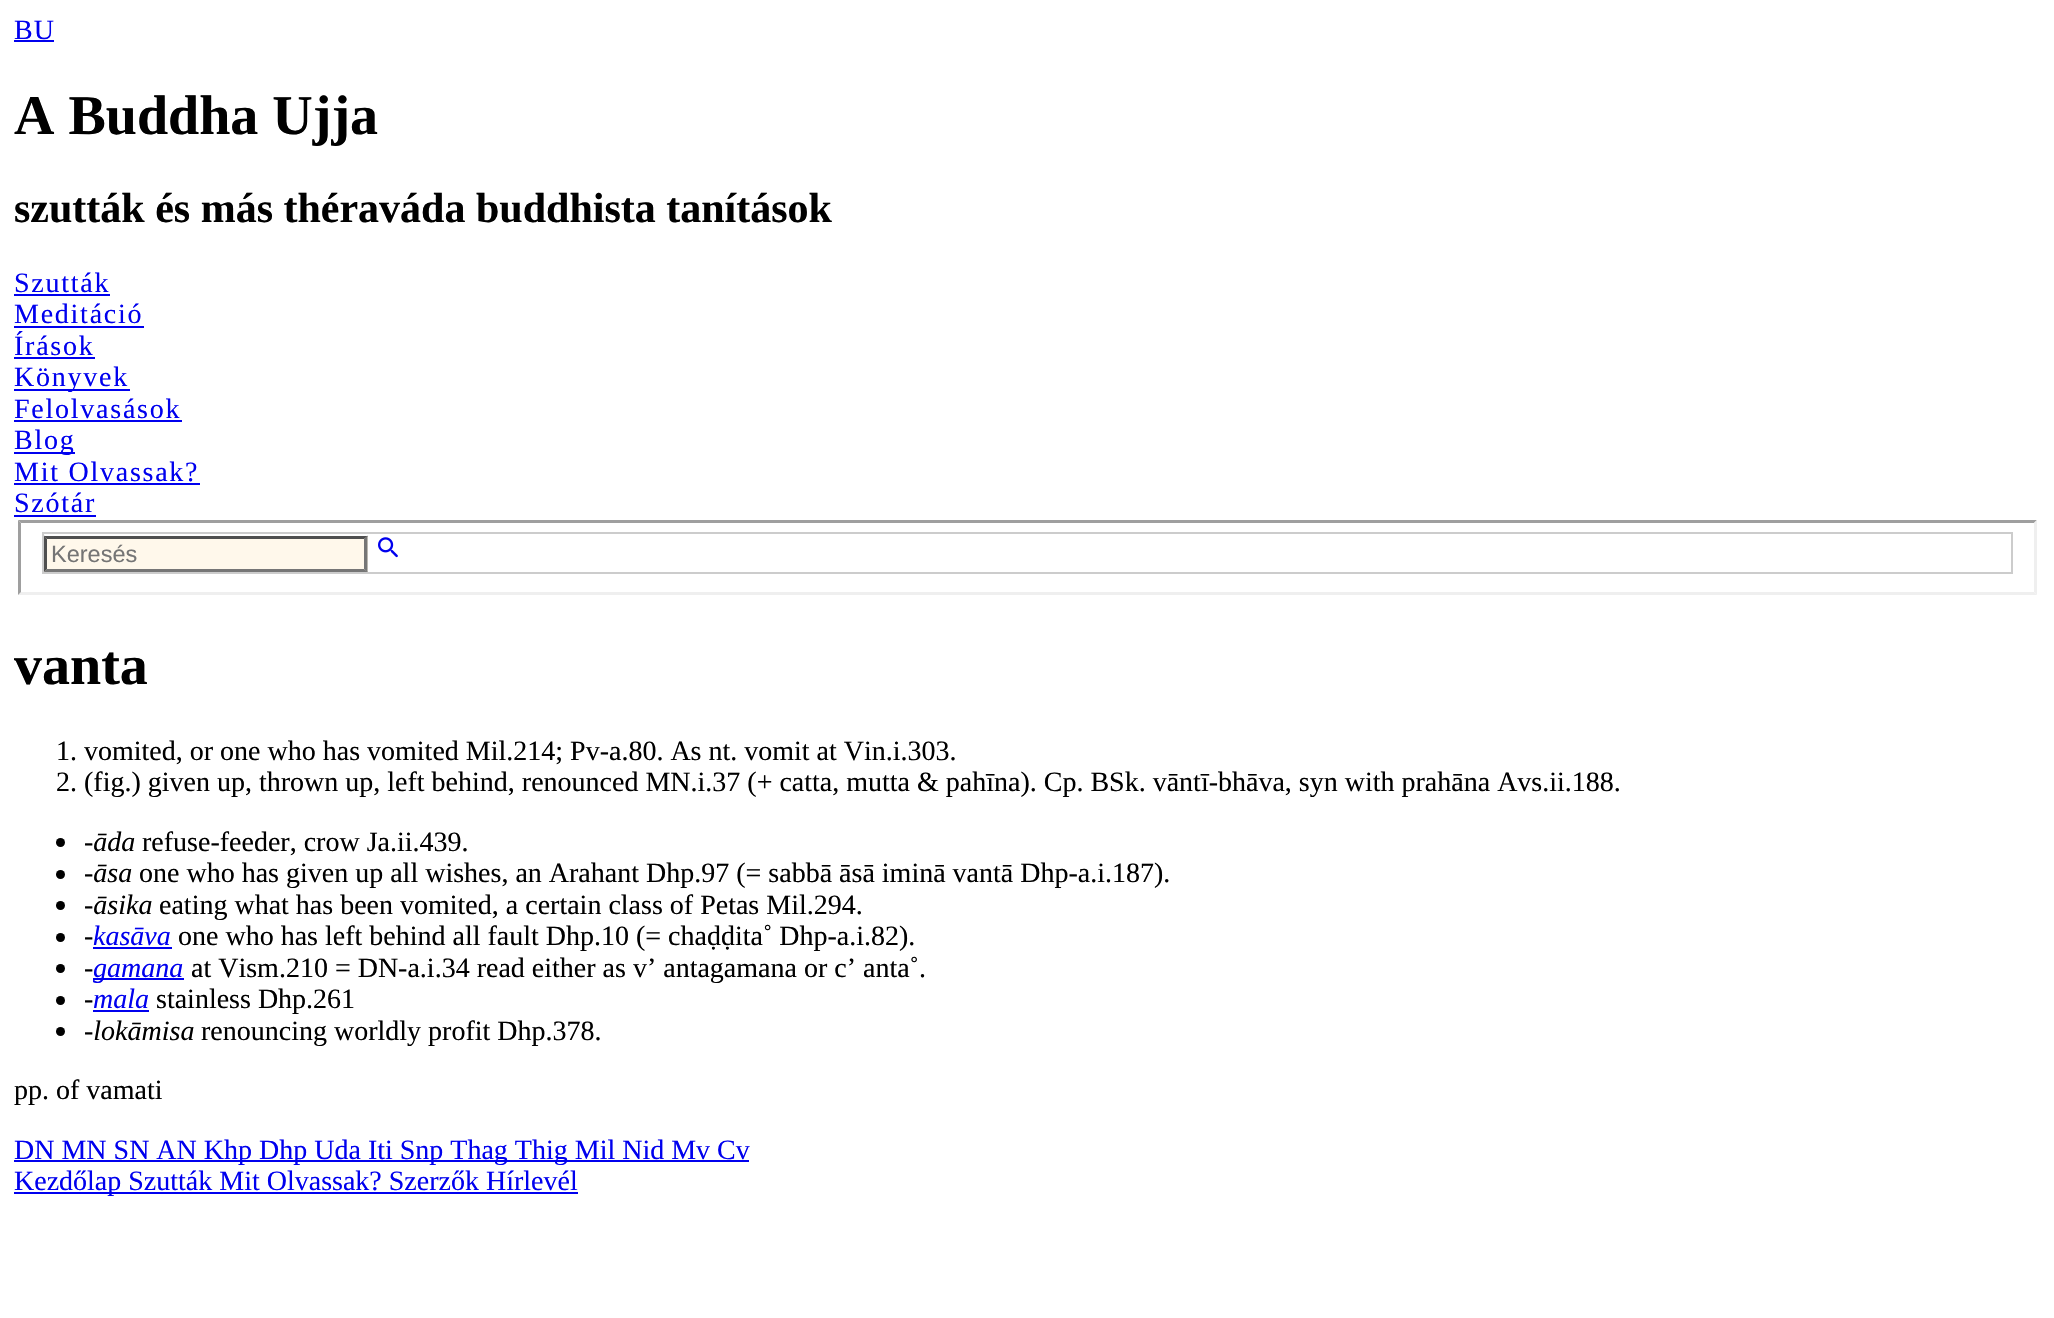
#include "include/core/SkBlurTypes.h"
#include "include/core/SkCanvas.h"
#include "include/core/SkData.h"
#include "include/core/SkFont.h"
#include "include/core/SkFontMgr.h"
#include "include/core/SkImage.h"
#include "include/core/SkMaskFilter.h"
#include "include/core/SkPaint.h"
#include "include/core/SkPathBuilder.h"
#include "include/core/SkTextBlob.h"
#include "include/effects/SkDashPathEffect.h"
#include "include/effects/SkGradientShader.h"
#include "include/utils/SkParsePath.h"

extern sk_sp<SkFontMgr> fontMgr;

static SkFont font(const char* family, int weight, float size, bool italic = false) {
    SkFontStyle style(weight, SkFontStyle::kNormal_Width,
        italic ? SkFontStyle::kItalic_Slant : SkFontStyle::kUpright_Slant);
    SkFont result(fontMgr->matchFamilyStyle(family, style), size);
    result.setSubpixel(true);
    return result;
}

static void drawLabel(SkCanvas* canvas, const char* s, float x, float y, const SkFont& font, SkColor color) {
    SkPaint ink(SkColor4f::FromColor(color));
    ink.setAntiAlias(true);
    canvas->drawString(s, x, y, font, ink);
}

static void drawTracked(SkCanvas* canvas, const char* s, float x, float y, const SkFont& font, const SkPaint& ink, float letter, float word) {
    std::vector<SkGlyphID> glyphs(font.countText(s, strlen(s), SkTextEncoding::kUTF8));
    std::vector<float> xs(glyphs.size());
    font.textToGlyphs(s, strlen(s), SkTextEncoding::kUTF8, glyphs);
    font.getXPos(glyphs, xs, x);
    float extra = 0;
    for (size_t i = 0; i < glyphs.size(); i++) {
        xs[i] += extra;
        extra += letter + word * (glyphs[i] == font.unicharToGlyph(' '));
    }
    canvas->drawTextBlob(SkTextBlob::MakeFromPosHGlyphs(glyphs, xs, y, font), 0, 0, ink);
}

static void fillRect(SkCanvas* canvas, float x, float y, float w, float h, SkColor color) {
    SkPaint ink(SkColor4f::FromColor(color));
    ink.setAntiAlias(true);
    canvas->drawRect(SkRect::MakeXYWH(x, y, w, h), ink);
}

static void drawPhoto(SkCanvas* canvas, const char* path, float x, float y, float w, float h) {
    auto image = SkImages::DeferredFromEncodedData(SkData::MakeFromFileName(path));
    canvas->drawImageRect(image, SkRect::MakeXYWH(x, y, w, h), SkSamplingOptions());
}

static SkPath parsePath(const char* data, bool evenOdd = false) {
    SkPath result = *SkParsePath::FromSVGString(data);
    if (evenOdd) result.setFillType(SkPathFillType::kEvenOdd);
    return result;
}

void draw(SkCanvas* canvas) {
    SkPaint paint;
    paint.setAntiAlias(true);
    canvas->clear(0xFFFFFFFF);
    SkFont font1 = font("Liberation Serif", 400, 28);
    paint.setColor(0xFF0000EE);
    drawTracked(canvas, "BU", 14, 39, font1, paint, 1, 0);
    fillRect(canvas, 14, 40, 40, 2, 0xFF0000EE);
    SkFont font2 = font("Liberation Serif", 700, 56);
    drawLabel(canvas, "A Buddha Ujja", 14, 134, font2, 0xFF000000);
    SkFont font3 = font("Liberation Serif", 700, 42);
    drawLabel(canvas, "szutták és más théraváda buddhista tanítások", 14, 222, font3, 0xFF000000);
    drawTracked(canvas, "Szutták", 14, 292, font1, paint, 1.75f, 0);
    fillRect(canvas, 14, 294, 96, 2, 0xFF0000EE);
    drawTracked(canvas, "Meditáció", 14, 323, font1, paint, 1.75f, 0);
    fillRect(canvas, 14, 326, 130, 2, 0xFF0000EE);
    drawTracked(canvas, "Írások", 14, 355, font1, paint, 1.75f, 0);
    fillRect(canvas, 14, 357, 81, 2, 0xFF0000EE);
    fillRect(canvas, 14, 389, 116, 2, 0xFF0000EE);
    drawTracked(canvas, "Könyvek", 14, 386, font1, paint, 1.75f, 0);
    drawTracked(canvas, "Felolvasások", 14, 418, font1, paint, 1.75f, 0);
    fillRect(canvas, 14, 420, 168, 2, 0xFF0000EE);
    fillRect(canvas, 14, 452, 61, 2, 0xFF0000EE);
    drawTracked(canvas, "Blog", 14, 449, font1, paint, 1.75f, 0);
    drawTracked(canvas, "Mit Olvassak?", 14, 481, font1, paint, 1.75f, 0);
    fillRect(canvas, 14, 483, 186, 2, 0xFF0000EE);
    drawTracked(canvas, "Szótár", 14, 512, font1, paint, 1.75f, 0);
    fillRect(canvas, 14, 515, 82, 2, 0xFF0000EE);
    paint.setColor(0xFF9F9F9F);
    canvas->drawPath(parsePath("M18 520H2037L2034 523H21Z"), paint);
    paint.setColor(0xFFEFEFEF);
    canvas->drawPath(parsePath("M2037 520V595L2034 592V523Z"), paint);
    canvas->drawPath(parsePath("M2037 595H18L21 592H2034Z"), paint);
    paint.setColor(0xFF9F9F9F);
    canvas->drawPath(parsePath("M18 595V520L21 523V592Z"), paint);
    paint.setStroke(true);
    paint.setStrokeWidth(2);
    paint.setColor(0xFFCCCCCC);
    canvas->drawRect(SkRect::MakeXYWH(43, 533, 1969, 40), paint);
    fillRect(canvas, 44, 536, 324, 36, 0xFFFFF8EB);
    paint.setStroke(false);
    paint.setColor(0xFF4F4F4F);
    canvas->drawPath(parsePath("M44 536H368L364 539H47Z"), paint);
    paint.setColor(0xFF767676);
    canvas->drawPath(parsePath("M367.5 535.5V572L364 569V539Z"), paint);
    canvas->drawPath(parsePath("M368 572H44L47 569H364Z"), paint);
    paint.setColor(0xFF4F4F4F);
    canvas->drawPath(parsePath("M44 572V535.5L47 539V569Z"), paint);
    SkFont font4 = font("Liberation Sans", 400, 23.5f);
    drawLabel(canvas, "Keresés", 51, 562, font4, 0xFF757575);
    drawPhoto(canvas, "assets/img1.png", 378, 537, 20, 21);
    drawLabel(canvas, "vanta", 14, 684, font2, 0xFF000000);
    drawLabel(canvas, "1. vomited, or one who has vomited Mil.214; Pv-a.80. As nt. vomit at Vin.i.303.", 56, 760, font1, 0xFF000000);
    drawLabel(canvas, "2. (fig.) given up, thrown up, left behind, renounced MN.i.37 (+ catta, mutta & pahīna). Cp. BSk. vāntī-bhāva, syn with prahāna Avs.ii.188.", 56, 791, font1, 0xFF000000);
    paint.setColor(0xFF000000);
    canvas->drawCircle(60.5f, 842.5f, 4.5f, paint);
    SkFont font5 = font("Liberation Serif", 400, 28, true);
    drawLabel(canvas, "-āda", 84, 851, font5, 0xFF000000);
    drawLabel(canvas, "refuse-feeder, crow Ja.ii.439.", 142, 851, font1, 0xFF000000);
    canvas->drawCircle(60.5f, 874.5f, 4.5f, paint);
    drawLabel(canvas, "-āsa", 84, 882, font5, 0xFF000000);
    drawLabel(canvas, "one who has given up all wishes, an Arahant Dhp.97 (= sabbā āsā iminā vantā Dhp-a.i.187).", 139, 882, font1, 0xFF000000);
    canvas->drawCircle(60.5f, 905.5f, 4.5f, paint);
    drawLabel(canvas, "-āsika", 84, 914, font5, 0xFF000000);
    drawLabel(canvas, "eating what has been vomited, a certain class of Petas Mil.294.", 159, 914, font1, 0xFF000000);
    canvas->drawCircle(60.5f, 937.5f, 4.5f, paint);
    drawLabel(canvas, "-", 84, 945, font5, 0xFF000000);
    fillRect(canvas, 93, 947, 79, 2, 0xFF0000EE);
    drawLabel(canvas, "kasāva", 93, 945, font5, 0xFF0000EE);
    drawLabel(canvas, "one who has left behind all fault Dhp.10 (= chaḍḍita˚ Dhp-a.i.82).", 178, 945, font1, 0xFF000000);
    canvas->drawCircle(60.5f, 968.5f, 4.5f, paint);
    drawLabel(canvas, "-", 84, 977, font5, 0xFF000000);
    fillRect(canvas, 93, 978, 91, 2, 0xFF0000EE);
    drawLabel(canvas, "gamana", 93, 977, font5, 0xFF0000EE);
    drawLabel(canvas, "at Vism.210 = DN-a.i.34 read either as v’ antagamana or c’ anta˚.", 191, 977, font1, 0xFF000000);
    canvas->drawCircle(60.5f, 1000.5f, 4.5f, paint);
    drawLabel(canvas, "-", 84, 1008, font5, 0xFF000000);
    fillRect(canvas, 93, 1010, 56, 2, 0xFF0000EE);
    drawLabel(canvas, "mala", 93, 1008, font5, 0xFF0000EE);
    drawLabel(canvas, "stainless Dhp.261", 156, 1008, font1, 0xFF000000);
    canvas->drawCircle(60.5f, 1031.5f, 4.5f, paint);
    drawLabel(canvas, "-lokāmisa", 84, 1040, font5, 0xFF000000);
    drawLabel(canvas, "renouncing worldly profit Dhp.378.", 201, 1040, font1, 0xFF000000);
    drawLabel(canvas, "pp. of vamati", 14, 1099, font1, 0xFF000000);
    fillRect(canvas, 14, 1160, 735, 2, 0xFF0000EE);
    drawLabel(canvas, "DN MN SN AN Khp Dhp Uda Iti Snp Thag Thig Mil Nid Mv Cv", 14, 1159, font1, 0xFF0000EE);
    fillRect(canvas, 14, 1192, 564, 2, 0xFF0000EE);
    drawLabel(canvas, "Kezdőlap Szutták Mit Olvassak? Szerzők Hírlevél", 14, 1190, font1, 0xFF0000EE);
}
